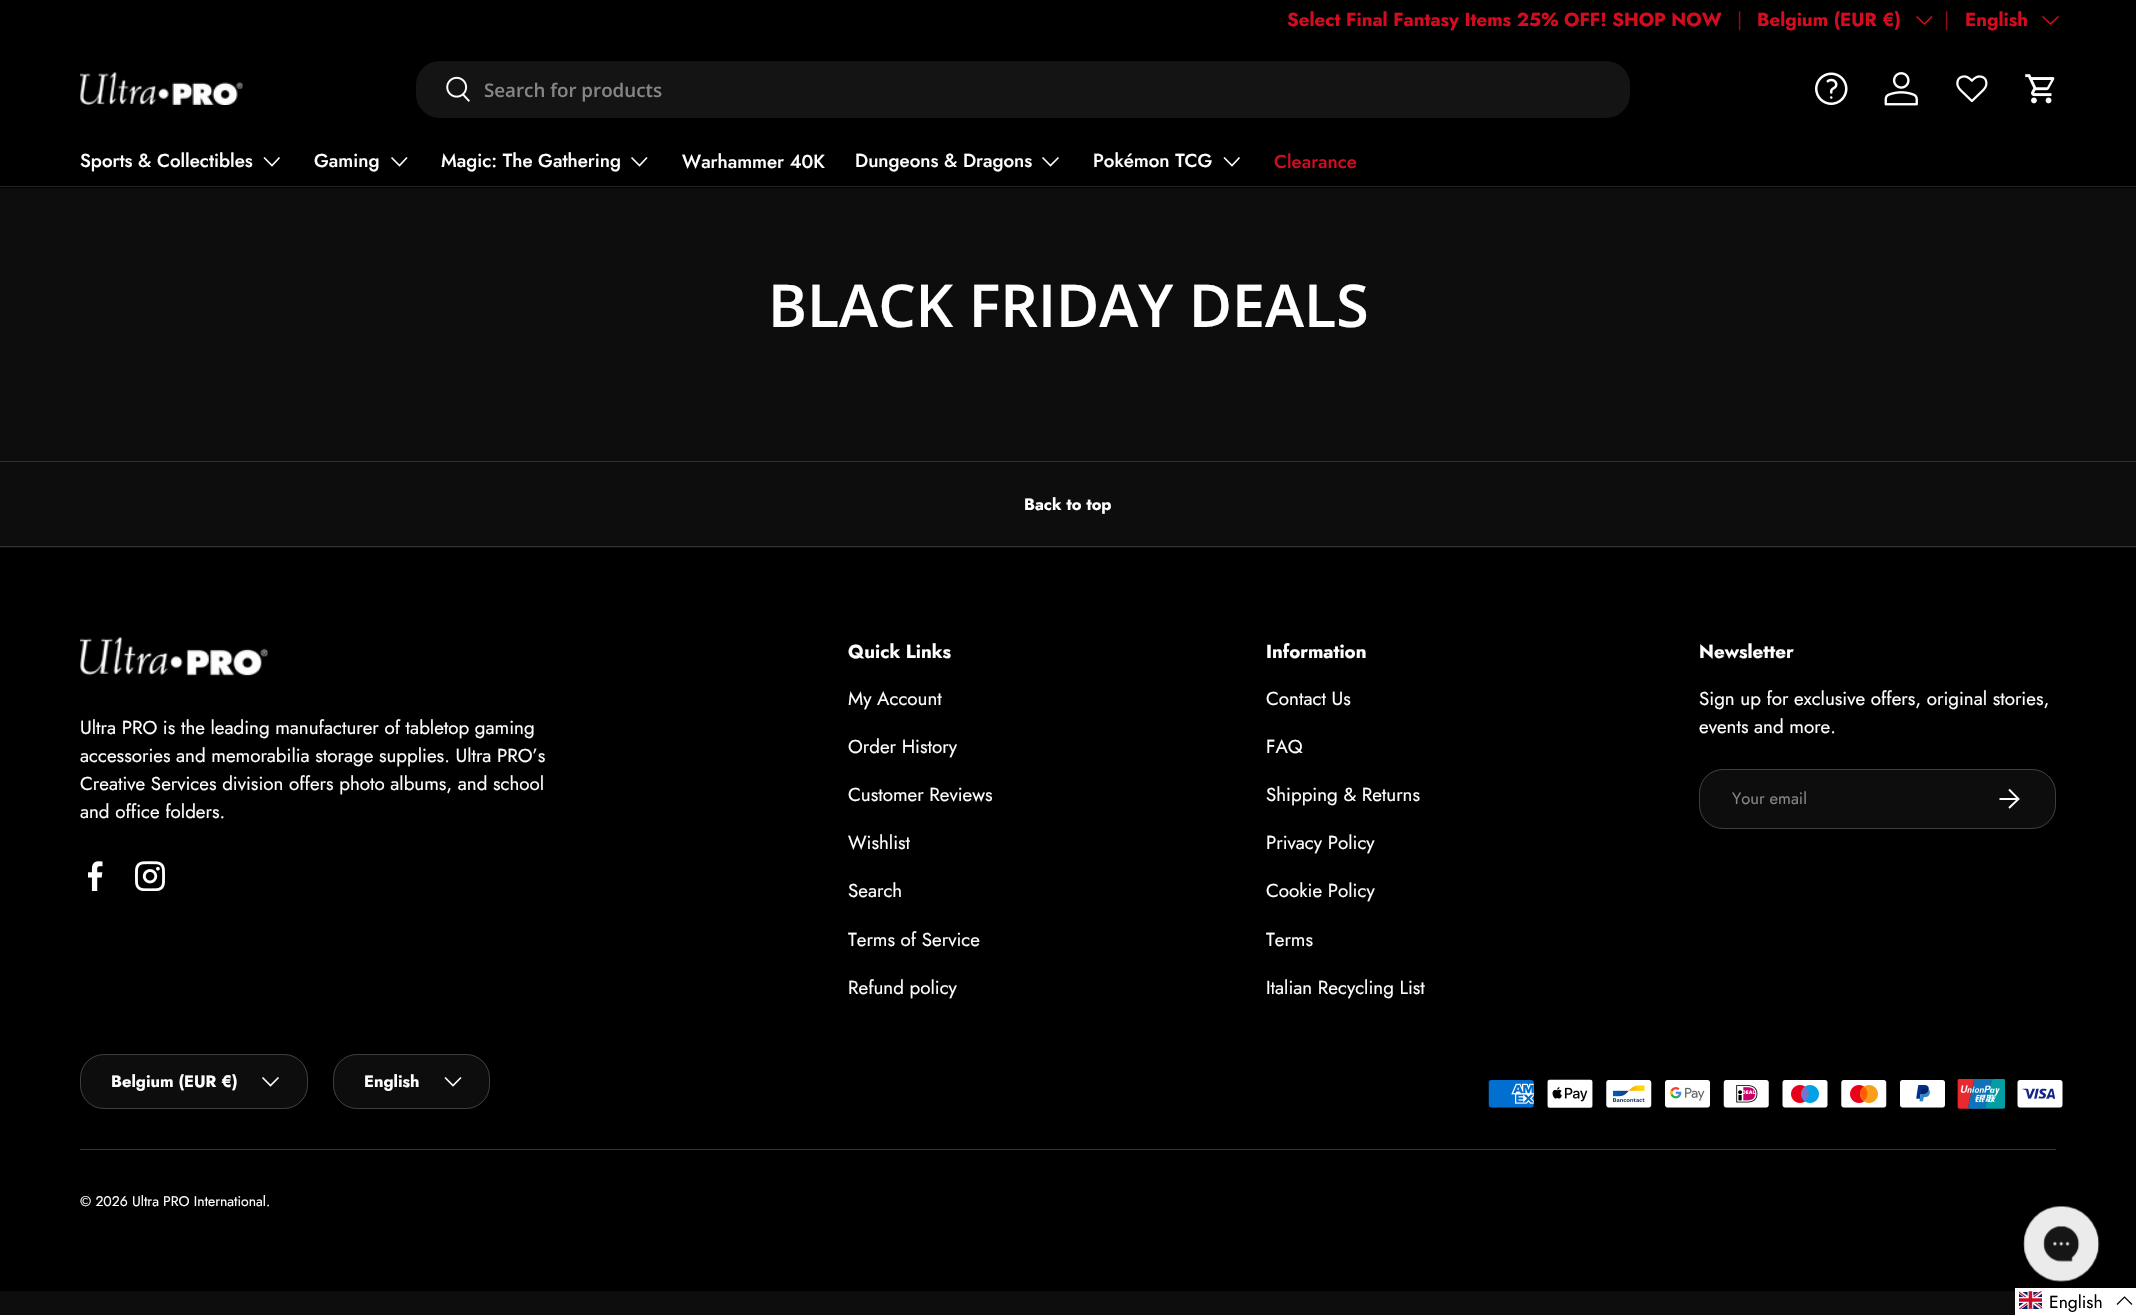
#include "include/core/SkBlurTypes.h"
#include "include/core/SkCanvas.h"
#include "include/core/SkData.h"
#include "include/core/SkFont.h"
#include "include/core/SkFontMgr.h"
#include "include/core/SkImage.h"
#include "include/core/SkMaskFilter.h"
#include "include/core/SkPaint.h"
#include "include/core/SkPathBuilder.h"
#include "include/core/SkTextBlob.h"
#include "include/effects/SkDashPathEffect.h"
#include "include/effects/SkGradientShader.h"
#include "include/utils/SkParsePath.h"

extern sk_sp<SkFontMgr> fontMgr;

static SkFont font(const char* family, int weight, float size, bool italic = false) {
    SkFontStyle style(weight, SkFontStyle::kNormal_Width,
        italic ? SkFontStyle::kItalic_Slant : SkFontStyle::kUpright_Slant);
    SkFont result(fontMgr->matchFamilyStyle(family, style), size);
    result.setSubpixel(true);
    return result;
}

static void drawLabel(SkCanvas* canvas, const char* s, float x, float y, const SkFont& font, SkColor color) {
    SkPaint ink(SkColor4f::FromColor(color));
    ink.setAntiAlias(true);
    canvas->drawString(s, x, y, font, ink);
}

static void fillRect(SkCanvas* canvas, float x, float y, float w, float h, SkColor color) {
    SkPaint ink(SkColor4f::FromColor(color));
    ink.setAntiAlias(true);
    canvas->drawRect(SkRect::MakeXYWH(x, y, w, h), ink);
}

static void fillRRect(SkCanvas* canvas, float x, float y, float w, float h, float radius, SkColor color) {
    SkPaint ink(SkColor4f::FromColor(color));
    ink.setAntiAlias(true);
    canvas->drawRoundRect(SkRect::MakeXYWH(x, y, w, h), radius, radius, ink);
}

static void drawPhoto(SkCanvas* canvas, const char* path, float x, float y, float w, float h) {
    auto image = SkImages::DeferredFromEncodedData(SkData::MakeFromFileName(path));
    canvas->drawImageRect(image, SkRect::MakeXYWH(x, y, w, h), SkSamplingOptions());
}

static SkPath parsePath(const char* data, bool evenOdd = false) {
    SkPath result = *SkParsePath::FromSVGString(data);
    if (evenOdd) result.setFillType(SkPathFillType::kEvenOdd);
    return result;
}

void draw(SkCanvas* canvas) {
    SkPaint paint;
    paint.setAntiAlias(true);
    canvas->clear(0xFF0E0D0D);
    fillRect(canvas, 0, 0, 2136, 188, 0xFF000000);
    SkFont font1 = font("Jost", 700, 18.75f);
    drawLabel(canvas, "Select Final Fantasy Items 25% OFF! SHOP NOW", 1287, 26, font1, 0xFFD50C1F);
    SkFont font2 = font("Jost", 400, 18.75f);
    drawLabel(canvas, "|", 1737, 26, font2, 0xFF950816);
    drawLabel(canvas, "Belgium (EUR €)", 1757, 26, font1, 0xFFD50C1F);
    paint.setStroke(true);
    paint.setStrokeWidth(1.6f);
    paint.setColor(0xFFD50C1F);
    canvas->drawPath(parsePath("M1932 16.5L1924.5 24L1916.5 16.5"), paint);
    drawLabel(canvas, "|", 1944, 26, font2, 0xFF950816);
    drawLabel(canvas, "English", 1965, 26, font1, 0xFFD50C1F);
    canvas->drawPath(parsePath("M2058.5 16.5L2050.5 24L2042.5 16.5"), paint);
    fillRect(canvas, 0, 186, 2136, 1, 0xFF262626);
    drawPhoto(canvas, "assets/img1.png", 80, 72, 163, 33);
    fillRRect(canvas, 416, 61, 1214, 57, 24, 0xFF141414);
    drawPhoto(canvas, "assets/img2.png", 446, 76, 24, 26);
    SkFont font3 = font("Open Sans", 600, 18.75f);
    drawLabel(canvas, "Search for products", 484, 97, font3, 0xFF878686);
    drawPhoto(canvas, "assets/img3.png", 1815, 72, 33, 33);
    drawPhoto(canvas, "assets/img4.png", 1884, 72, 34, 34);
    drawPhoto(canvas, "assets/img5.png", 1956, 75, 32, 28);
    drawPhoto(canvas, "assets/img6.png", 2025, 74, 30, 30);
    SkFont font4 = font("Jost", 500, 18.75f);
    drawLabel(canvas, "Sports & Collectibles", 80, 167, font4, 0xFFFFFFFF);
    paint.setColor(0xFFFFFFFF);
    canvas->drawPath(parsePath("M279.5 157.5L272 165.5L264 157.5"), paint);
    drawLabel(canvas, "Gaming", 314, 167, font4, 0xFFFFFFFF);
    canvas->drawPath(parsePath("M407 157.5L399.5 165.5L391.5 157.5"), paint);
    drawLabel(canvas, "Magic: The Gathering", 441, 167, font4, 0xFFFFFFFF);
    canvas->drawPath(parsePath("M647 157.5L639.5 165.5L631.5 157.5"), paint);
    drawLabel(canvas, "Warhammer 40K", 682, 168, font4, 0xFFFFFFFF);
    drawLabel(canvas, "Dungeons & Dragons", 855, 167, font4, 0xFFFFFFFF);
    canvas->drawPath(parsePath("M1058.5 157.5L1050.5 165.5L1042.5 157.5"), paint);
    drawLabel(canvas, "Pokémon TCG", 1093, 167, font4, 0xFFFFFFFF);
    canvas->drawPath(parsePath("M1239.5 157.5L1232 165.5L1224 157.5"), paint);
    drawLabel(canvas, "Clearance", 1274, 168, font4, 0xFFD50C1F);
    SkFont font5 = font("Open Sans", 600, 59.1f);
    drawLabel(canvas, "BLACK FRIDAY DEALS", 768, 327, font5, 0xFFFFFFFF);
    fillRect(canvas, 0, 461, 2136, 1, 0xFF323131);
    fillRect(canvas, 0, 546, 2136, 1, 0xFF323131);
    SkFont font6 = font("Jost", 700, 16.5f);
    drawLabel(canvas, "Back to top", 1024, 510, font6, 0xFFFFFFFF);
    fillRect(canvas, 0, 548, 2136, 743, 0xFF000000);
    drawPhoto(canvas, "assets/img7.png", 80, 637, 188, 39);
    drawLabel(canvas, "Ultra PRO is the leading manufacturer of tabletop gaming", 80, 734, font2, 0xFFFFFFFF);
    drawLabel(canvas, "accessories and memorabilia storage supplies. Ultra PRO’s", 80, 762, font2, 0xFFFFFFFF);
    drawLabel(canvas, "Creative Services division offers photo albums, and school", 80, 790, font2, 0xFFFFFFFF);
    drawLabel(canvas, "and office folders.", 80, 818, font2, 0xFFFFFFFF);
    drawPhoto(canvas, "assets/img8.png", 88, 861, 15, 30);
    drawPhoto(canvas, "assets/img9.png", 135, 861, 30, 30);
    drawLabel(canvas, "Quick Links", 848, 658, font1, 0xFFFFFFFF);
    drawLabel(canvas, "My Account", 848, 705, font2, 0xFFFFFFFF);
    drawLabel(canvas, "Order History", 848, 753, font2, 0xFFFFFFFF);
    drawLabel(canvas, "Customer Reviews", 848, 801, font2, 0xFFFFFFFF);
    drawLabel(canvas, "Wishlist", 848, 849, font2, 0xFFFFFFFF);
    drawLabel(canvas, "Search", 848, 897, font2, 0xFFFFFFFF);
    drawLabel(canvas, "Terms of Service", 848, 946, font2, 0xFFFFFFFF);
    drawLabel(canvas, "Refund policy", 848, 994, font2, 0xFFFFFFFF);
    drawLabel(canvas, "Information", 1266, 658, font1, 0xFFFFFFFF);
    drawLabel(canvas, "Contact Us", 1266, 705, font2, 0xFFFFFFFF);
    drawLabel(canvas, "FAQ", 1266, 753, font2, 0xFFFFFFFF);
    drawLabel(canvas, "Shipping & Returns", 1266, 801, font2, 0xFFFFFFFF);
    drawLabel(canvas, "Privacy Policy", 1266, 849, font2, 0xFFFFFFFF);
    drawLabel(canvas, "Cookie Policy", 1266, 897, font2, 0xFFFFFFFF);
    drawLabel(canvas, "Terms", 1266, 946, font2, 0xFFFFFFFF);
    drawLabel(canvas, "Italian Recycling List", 1266, 994, font2, 0xFFFFFFFF);
    drawLabel(canvas, "Newsletter", 1699, 658, font1, 0xFFFFFFFF);
    drawLabel(canvas, "Sign up for exclusive offers, original stories,", 1699, 705, font2, 0xFFFFFFFF);
    drawLabel(canvas, "events and more.", 1699, 733, font2, 0xFFFFFFFF);
    fillRRect(canvas, 1699, 769, 357, 60, 24, 0xFF0E0D0D);
    paint.setStrokeWidth(1);
    paint.setColor(0x33FFFFFF);
    canvas->drawRoundRect(SkRect::MakeXYWH(1699.5f, 769.5f, 356, 59), 23.5f, 23.5f, paint);
    SkFont font7 = font("Jost", 400, 16.5f);
    drawLabel(canvas, "Your email", 1732, 804, font7, 0xFF878686);
    paint.setStrokeWidth(1.9f);
    paint.setColor(0xFFFFFFFF);
    canvas->drawPath(parsePath("M1999.5 799H2018M2009 789.5L2018.5 799L2009 808"), paint);
    fillRRect(canvas, 80, 1054, 228, 55, 24, 0xFF0E0D0D);
    paint.setStrokeWidth(1);
    paint.setColor(0x33FFFFFF);
    canvas->drawRoundRect(SkRect::MakeXYWH(80.5f, 1054.5f, 227, 54), 23.5f, 23.5f, paint);
    drawLabel(canvas, "Belgium (EUR €)", 111, 1087, font6, 0xFFFFFFFF);
    paint.setStrokeWidth(1.6f);
    paint.setColor(0xFFFFFFFF);
    canvas->drawPath(parsePath("M278.5 1077.5L270.5 1085.5L262.5 1077.5"), paint);
    fillRRect(canvas, 333, 1054, 157, 55, 24, 0xFF0E0D0D);
    paint.setStrokeWidth(1);
    paint.setColor(0x33FFFFFF);
    canvas->drawRoundRect(SkRect::MakeXYWH(333.5f, 1054.5f, 156, 54), 23.5f, 23.5f, paint);
    drawLabel(canvas, "English", 364, 1087, font6, 0xFFFFFFFF);
    paint.setStrokeWidth(1.6f);
    paint.setColor(0xFFFFFFFF);
    canvas->drawPath(parsePath("M461 1077.5L453 1085.5L445 1077.5"), paint);
    drawPhoto(canvas, "assets/img10.png", 1488, 1080, 46, 28);
    drawPhoto(canvas, "assets/img11.png", 1547, 1079, 46, 29);
    drawPhoto(canvas, "assets/img12.png", 1606, 1080, 46, 28);
    drawPhoto(canvas, "assets/img13.png", 1665, 1080, 45, 28);
    drawPhoto(canvas, "assets/img14.png", 1723, 1080, 46, 28);
    drawPhoto(canvas, "assets/img15.png", 1782, 1080, 46, 28);
    drawPhoto(canvas, "assets/img16.png", 1841, 1080, 46, 28);
    drawPhoto(canvas, "assets/img17.png", 1900, 1080, 45, 28);
    drawPhoto(canvas, "assets/img18.png", 1957, 1079, 48, 30);
    drawPhoto(canvas, "assets/img19.png", 2017, 1080, 46, 28);
    fillRect(canvas, 80, 1149, 1976, 1, 0xFF333333);
    SkFont font8 = font("Jost", 400, 14);
    drawLabel(canvas, "© 2026 Ultra PRO International.", 80, 1206, font8, 0xFFFFFFFF);
    drawPhoto(canvas, "assets/img20.png", 2023, 1205, 77, 77);
    fillRect(canvas, 2015, 1288, 121, 27, 0xFFFFFFFF);
    drawPhoto(canvas, "assets/img21.png", 2019, 1291, 24, 18);
    SkFont font9 = font("Jost", 400, 17.5f);
    drawLabel(canvas, "English", 2049, 1308, font9, 0xFF000000);
    paint.setStrokeWidth(1.2f);
    paint.setColor(0xFF000000);
    canvas->drawPath(parsePath("M2132 1304.5L2124.5 1297L2117 1304.5"), paint);
}
